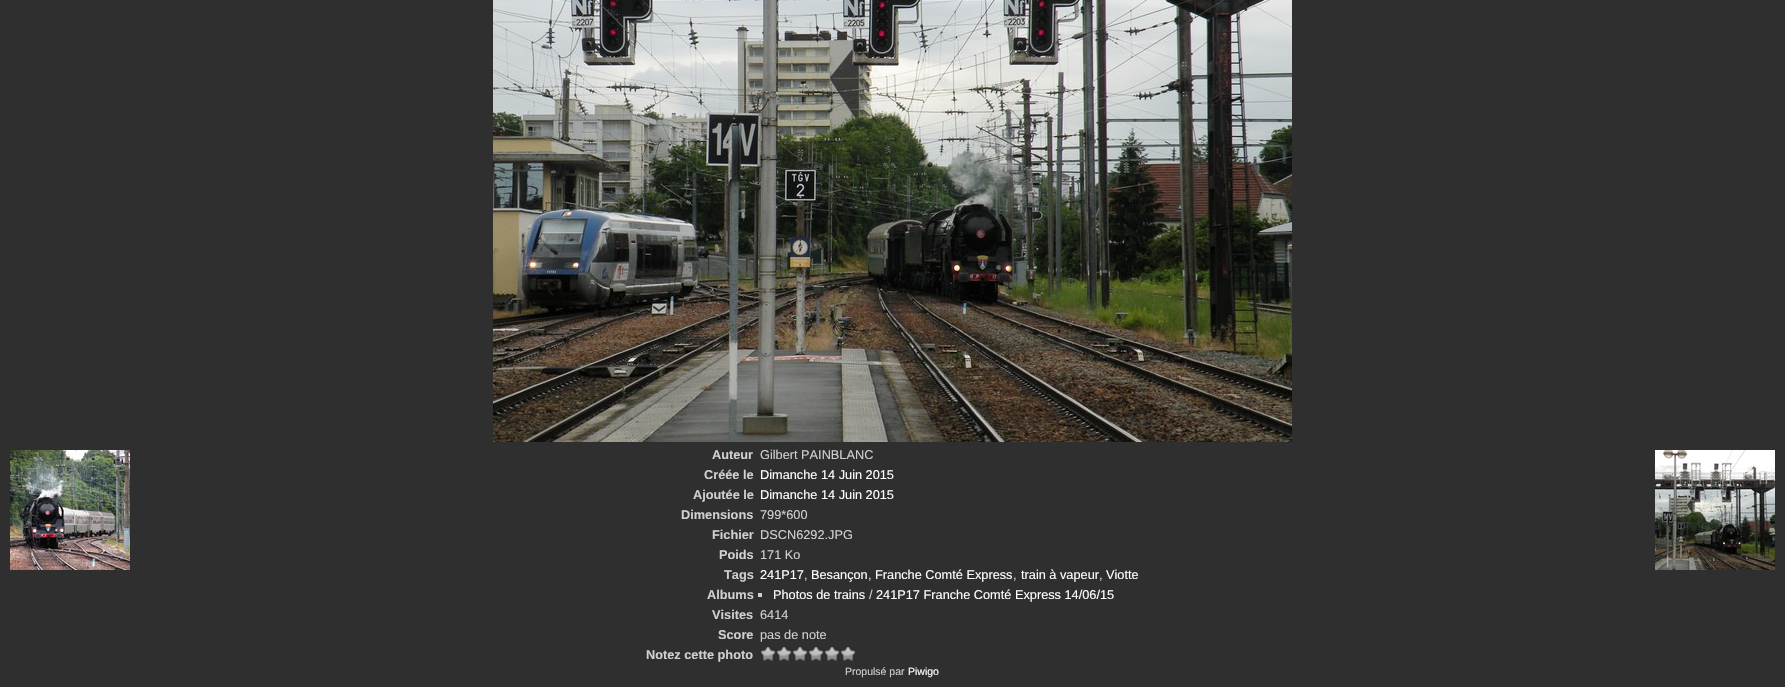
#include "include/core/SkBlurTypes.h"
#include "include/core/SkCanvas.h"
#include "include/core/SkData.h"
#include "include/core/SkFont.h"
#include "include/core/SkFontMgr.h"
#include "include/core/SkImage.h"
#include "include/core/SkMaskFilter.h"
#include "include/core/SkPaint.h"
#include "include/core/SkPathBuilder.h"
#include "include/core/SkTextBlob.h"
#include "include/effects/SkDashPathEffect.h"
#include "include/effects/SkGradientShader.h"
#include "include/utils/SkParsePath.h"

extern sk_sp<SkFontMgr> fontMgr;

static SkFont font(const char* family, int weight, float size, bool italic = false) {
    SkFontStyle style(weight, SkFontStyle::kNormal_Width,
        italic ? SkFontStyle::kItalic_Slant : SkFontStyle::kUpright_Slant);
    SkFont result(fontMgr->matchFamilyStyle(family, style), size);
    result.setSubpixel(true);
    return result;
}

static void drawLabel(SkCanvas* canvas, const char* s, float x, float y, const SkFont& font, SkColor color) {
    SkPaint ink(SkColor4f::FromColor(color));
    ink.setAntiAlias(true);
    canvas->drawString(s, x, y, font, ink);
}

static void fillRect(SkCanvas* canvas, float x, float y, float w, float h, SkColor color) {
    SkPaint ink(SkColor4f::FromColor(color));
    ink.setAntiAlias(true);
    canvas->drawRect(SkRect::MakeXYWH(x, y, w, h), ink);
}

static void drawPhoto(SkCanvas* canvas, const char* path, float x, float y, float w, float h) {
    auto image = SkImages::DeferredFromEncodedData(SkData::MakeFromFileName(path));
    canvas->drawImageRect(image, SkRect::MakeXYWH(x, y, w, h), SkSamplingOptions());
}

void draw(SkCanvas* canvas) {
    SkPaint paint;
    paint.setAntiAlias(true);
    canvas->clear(0xFF2F2F2F);
    drawPhoto(canvas, "assets/img1.png", 493, 0, 799, 442);
    SkFont font1 = font("Liberation Sans", 700, 12.75f);
    drawLabel(canvas, "Auteur", 712, 459, font1, 0xFFD0D0D0);
    SkFont font2 = font("Liberation Sans", 400, 12.75f);
    drawLabel(canvas, "Gilbert PAINBLANC", 760, 459, font2, 0xFFD0D0D0);
    drawLabel(canvas, "Créée le", 704, 479, font1, 0xFFD0D0D0);
    drawLabel(canvas, "Dimanche 14 Juin 2015", 760, 479, font2, 0xFFFFFFFF);
    drawLabel(canvas, "Ajoutée le", 693, 499, font1, 0xFFD0D0D0);
    drawLabel(canvas, "Dimanche 14 Juin 2015", 760, 499, font2, 0xFFFFFFFF);
    drawLabel(canvas, "Dimensions", 681, 519, font1, 0xFFD0D0D0);
    drawLabel(canvas, "799*600", 760, 519, font2, 0xFFD0D0D0);
    drawLabel(canvas, "Fichier", 712, 539, font1, 0xFFD0D0D0);
    drawLabel(canvas, "DSCN6292.JPG", 760, 539, font2, 0xFFD0D0D0);
    drawLabel(canvas, "Poids", 719, 559, font1, 0xFFD0D0D0);
    drawLabel(canvas, "171 Ko", 760, 559, font2, 0xFFD0D0D0);
    drawLabel(canvas, "Tags", 724, 579, font1, 0xFFD0D0D0);
    drawLabel(canvas, "241P17", 760, 579, font2, 0xFFFFFFFF);
    drawLabel(canvas, ",", 804, 579, font2, 0xFFD0D0D0);
    drawLabel(canvas, "Besançon", 811, 579, font2, 0xFFFFFFFF);
    drawLabel(canvas, ",", 868, 579, font2, 0xFFD0D0D0);
    drawLabel(canvas, "Franche Comté Express", 875, 579, font2, 0xFFFFFFFF);
    drawLabel(canvas, ",", 1013, 579, font2, 0xFFD0D0D0);
    drawLabel(canvas, "train à vapeur", 1021, 579, font2, 0xFFFFFFFF);
    drawLabel(canvas, ",", 1099, 579, font2, 0xFFD0D0D0);
    drawLabel(canvas, "Viotte", 1106, 579, font2, 0xFFFFFFFF);
    drawLabel(canvas, "Albums", 707, 599, font1, 0xFFD0D0D0);
    fillRect(canvas, 758, 593, 4, 4, 0xFFD0D0D0);
    drawLabel(canvas, "Photos de trains", 773, 599, font2, 0xFFFFFFFF);
    drawLabel(canvas, "/", 869, 599, font2, 0xFFD0D0D0);
    drawLabel(canvas, "241P17 Franche Comté Express 14/06/15", 876, 599, font2, 0xFFFFFFFF);
    drawLabel(canvas, "Visites", 712, 619, font1, 0xFFD0D0D0);
    drawLabel(canvas, "6414", 760, 619, font2, 0xFFD0D0D0);
    drawLabel(canvas, "Score", 718, 639, font1, 0xFFD0D0D0);
    drawLabel(canvas, "pas de note", 760, 639, font2, 0xFFD0D0D0);
    drawLabel(canvas, "Notez cette photo", 646, 659, font1, 0xFFD0D0D0);
    drawPhoto(canvas, "assets/img2.png", 760, 647, 16, 14);
    drawPhoto(canvas, "assets/img2.png", 776, 647, 16, 14);
    drawPhoto(canvas, "assets/img2.png", 792, 647, 16, 14);
    drawPhoto(canvas, "assets/img2.png", 808, 647, 16, 14);
    drawPhoto(canvas, "assets/img2.png", 824, 647, 16, 14);
    drawPhoto(canvas, "assets/img2.png", 840, 647, 16, 14);
    drawPhoto(canvas, "assets/img3.png", 10, 450, 120, 120);
    drawPhoto(canvas, "assets/img4.png", 1655, 450, 120, 120);
    SkFont font3 = font("Liberation Sans", 400, 10.5f);
    drawLabel(canvas, "Propulsé par", 845, 675, font3, 0xFFD0D0D0);
    drawLabel(canvas, "Piwigo", 908, 675, font3, 0xFFFFFFFF);
}
